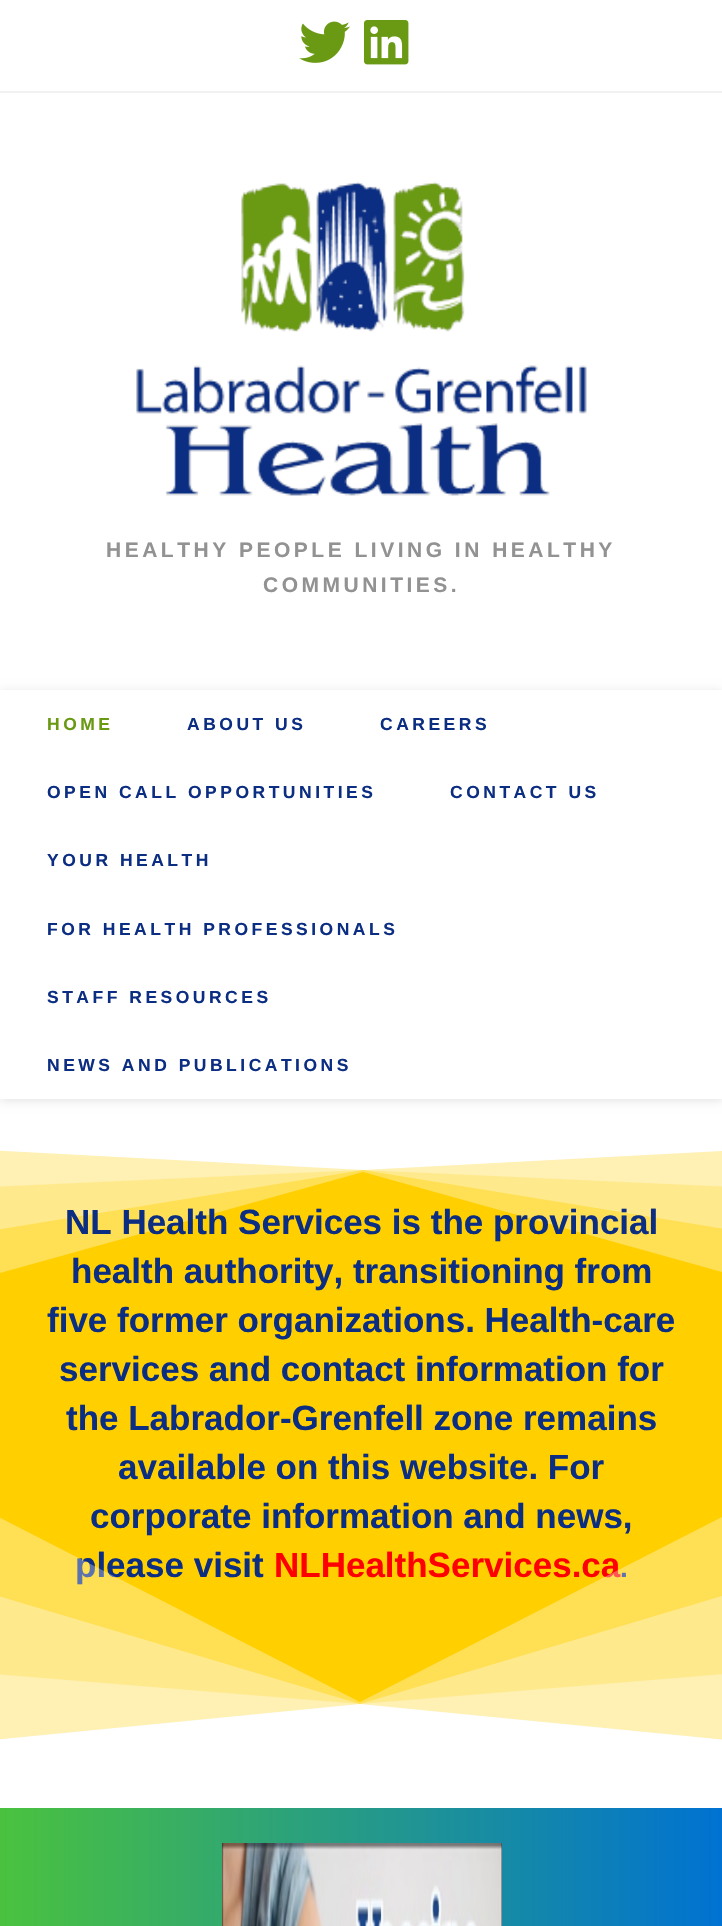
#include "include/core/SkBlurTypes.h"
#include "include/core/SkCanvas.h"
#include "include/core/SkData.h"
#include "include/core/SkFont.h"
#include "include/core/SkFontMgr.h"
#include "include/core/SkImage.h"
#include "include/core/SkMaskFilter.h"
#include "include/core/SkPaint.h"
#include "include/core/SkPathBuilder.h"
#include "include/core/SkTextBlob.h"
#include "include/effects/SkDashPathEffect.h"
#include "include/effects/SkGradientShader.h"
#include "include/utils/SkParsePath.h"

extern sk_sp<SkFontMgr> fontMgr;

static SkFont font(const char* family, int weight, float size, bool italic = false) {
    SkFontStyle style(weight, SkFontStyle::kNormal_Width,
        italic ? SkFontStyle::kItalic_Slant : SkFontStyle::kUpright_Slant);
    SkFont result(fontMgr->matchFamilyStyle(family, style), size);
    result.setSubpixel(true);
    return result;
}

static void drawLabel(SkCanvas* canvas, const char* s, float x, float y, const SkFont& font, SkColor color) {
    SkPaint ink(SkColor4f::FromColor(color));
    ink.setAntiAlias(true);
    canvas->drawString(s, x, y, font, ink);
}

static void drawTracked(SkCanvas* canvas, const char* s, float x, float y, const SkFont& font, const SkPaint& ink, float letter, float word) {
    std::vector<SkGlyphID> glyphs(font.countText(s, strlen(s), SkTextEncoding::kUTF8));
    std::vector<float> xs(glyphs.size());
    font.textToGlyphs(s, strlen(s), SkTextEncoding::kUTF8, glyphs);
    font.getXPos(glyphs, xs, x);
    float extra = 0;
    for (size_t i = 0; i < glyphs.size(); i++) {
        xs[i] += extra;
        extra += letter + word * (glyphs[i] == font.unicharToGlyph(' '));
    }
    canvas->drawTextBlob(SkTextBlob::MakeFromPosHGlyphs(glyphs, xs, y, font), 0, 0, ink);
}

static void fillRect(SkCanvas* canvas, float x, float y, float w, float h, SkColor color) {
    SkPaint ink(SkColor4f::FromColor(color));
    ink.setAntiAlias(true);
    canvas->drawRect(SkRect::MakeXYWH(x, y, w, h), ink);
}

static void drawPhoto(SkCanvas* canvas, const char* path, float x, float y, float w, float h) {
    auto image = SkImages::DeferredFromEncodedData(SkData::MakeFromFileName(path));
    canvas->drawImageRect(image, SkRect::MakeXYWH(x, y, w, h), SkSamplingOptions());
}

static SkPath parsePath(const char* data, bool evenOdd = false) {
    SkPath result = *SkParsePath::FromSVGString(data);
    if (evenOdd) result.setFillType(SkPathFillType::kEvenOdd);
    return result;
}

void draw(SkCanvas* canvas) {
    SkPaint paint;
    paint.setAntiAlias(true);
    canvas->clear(0xFFFFFFFF);
    fillRect(canvas, 0, 91, 722, 2, 0xFFF1F1F1);
    drawPhoto(canvas, "assets/img1.png", 299, 21, 51, 42);
    drawPhoto(canvas, "assets/img2.png", 364, 20, 45, 45);
    drawPhoto(canvas, "assets/img3.png", 136, 181, 451, 315);
    SkFont font1 = font("Liberation Sans", 700, 21);
    paint.setColor(0xFF929292);
    drawTracked(canvas, "HEALTHY PEOPLE LIVING IN HEALTHY", 106, 557, font1, paint, 3.5f, 0);
    drawTracked(canvas, "COMMUNITIES.", 263, 592, font1, paint, 3.5f, 0);
    fillRect(canvas, 0, 1150, 722, 590, 0xFFFFCF00);
    paint.setColor(0x54FFFFFF);
    canvas->drawPath(parsePath("M-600 1097V1440L363 1172L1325 1440V1097Z"), paint);
    canvas->drawPath(parsePath("M-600 1097V1327L363 1170L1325 1327V1097Z"), paint);
    canvas->drawPath(parsePath("M-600 1097V1214L363 1170L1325 1214V1097Z"), paint);
    paint.setColor(0xFFFFFFFF);
    canvas->drawPath(parsePath("M-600 1097V1119L363 1170L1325 1119V1097Z"), paint);
    canvas->save();
    canvas->clipPath(parsePath("M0 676H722V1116H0ZM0 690H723V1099H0Z", true), true);
    paint.setColor(0x1A000000);
    paint.setMaskFilter(SkMaskFilter::MakeBlur(kNormal_SkBlurStyle, 4.5f));
    canvas->drawRect(SkRect::MakeXYWH(0, 691, 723, 410), paint);
    paint.setMaskFilter(nullptr);
    canvas->restore();
    SkFont font2 = font("Liberation Sans", 700, 17.5f);
    paint.setColor(0xFF6A9913);
    drawTracked(canvas, "HOME", 47, 730, font2, paint, 3.5f, 0);
    paint.setColor(0xFF0C2E82);
    drawTracked(canvas, "ABOUT US", 187, 730, font2, paint, 3.5f, 0);
    drawTracked(canvas, "CAREERS", 380, 730, font2, paint, 3.5f, 0);
    drawTracked(canvas, "OPEN CALL OPPORTUNITIES", 47, 798, font2, paint, 3.5f, 0);
    drawTracked(canvas, "CONTACT US", 450, 798, font2, paint, 3.5f, 0);
    drawTracked(canvas, "YOUR HEALTH", 47, 866, font2, paint, 3.5f, 0);
    drawTracked(canvas, "FOR HEALTH PROFESSIONALS", 47, 935, font2, paint, 3.5f, 0);
    drawTracked(canvas, "STAFF RESOURCES", 47, 1003, font2, paint, 3.5f, 0);
    drawTracked(canvas, "NEWS AND PUBLICATIONS", 47, 1071, font2, paint, 3.5f, 0);
    SkFont font3 = font("Liberation Sans", 700, 35);
    drawLabel(canvas, "NL Health Services is the provincial", 65, 1234, font3, 0xFF0C2E82);
    drawLabel(canvas, "health authority, transitioning from", 71, 1283, font3, 0xFF0C2E82);
    drawLabel(canvas, "five former organizations. Health-care", 47, 1332, font3, 0xFF0C2E82);
    drawLabel(canvas, "services and contact information for", 59, 1381, font3, 0xFF0C2E82);
    drawLabel(canvas, "the Labrador-Grenfell zone remains", 66, 1430, font3, 0xFF0C2E82);
    drawLabel(canvas, "available on this website. For", 118, 1479, font3, 0xFF0C2E82);
    drawLabel(canvas, "corporate information and news,", 90, 1528, font3, 0xFF0C2E82);
    drawLabel(canvas, "please visit", 75, 1577, font3, 0xFF0C2E82);
    drawLabel(canvas, "NLHealthServices.ca", 274, 1577, font3, 0xFFFF0000);
    SkFont font4 = font("Liberation Sans", 700, 28);
    drawLabel(canvas, ".", 620, 1577, font4, 0xFF0C2E82);
    canvas->save();
    canvas->clipRect(SkRect::MakeXYWH(0, 1360, 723, 432));
    paint.setColor(0x54FFFFFF);
    canvas->drawPath(parsePath("M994 1793V1378L360 1702L-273 1378V1793Z"), paint);
    canvas->drawPath(parsePath("M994 1793V1515L360 1704L-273 1515V1793Z"), paint);
    canvas->drawPath(parsePath("M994 1793V1652L360 1704L-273 1652V1793Z"), paint);
    paint.setColor(0xFFFFFFFF);
    canvas->drawPath(parsePath("M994 1793V1766L360 1704L-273 1766V1793Z"), paint);
    canvas->restore();
    {
        const SkColor colors[] = {0xFF4AC23F, 0xFF0072D2};
        const float stops[] = {0, 1};
        const SkPoint ends[] = {{0, 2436}, {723, 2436}};
        paint.setShader(SkGradientShader::MakeLinear(ends, colors, stops, 2, SkTileMode::kClamp));
        paint.setAlpha(255);
    }
    canvas->drawRect(SkRect::MakeXYWH(0, 1808, 722, 118), paint);
    drawPhoto(canvas, "assets/img4.png", 222, 1843, 280, 83);
}
